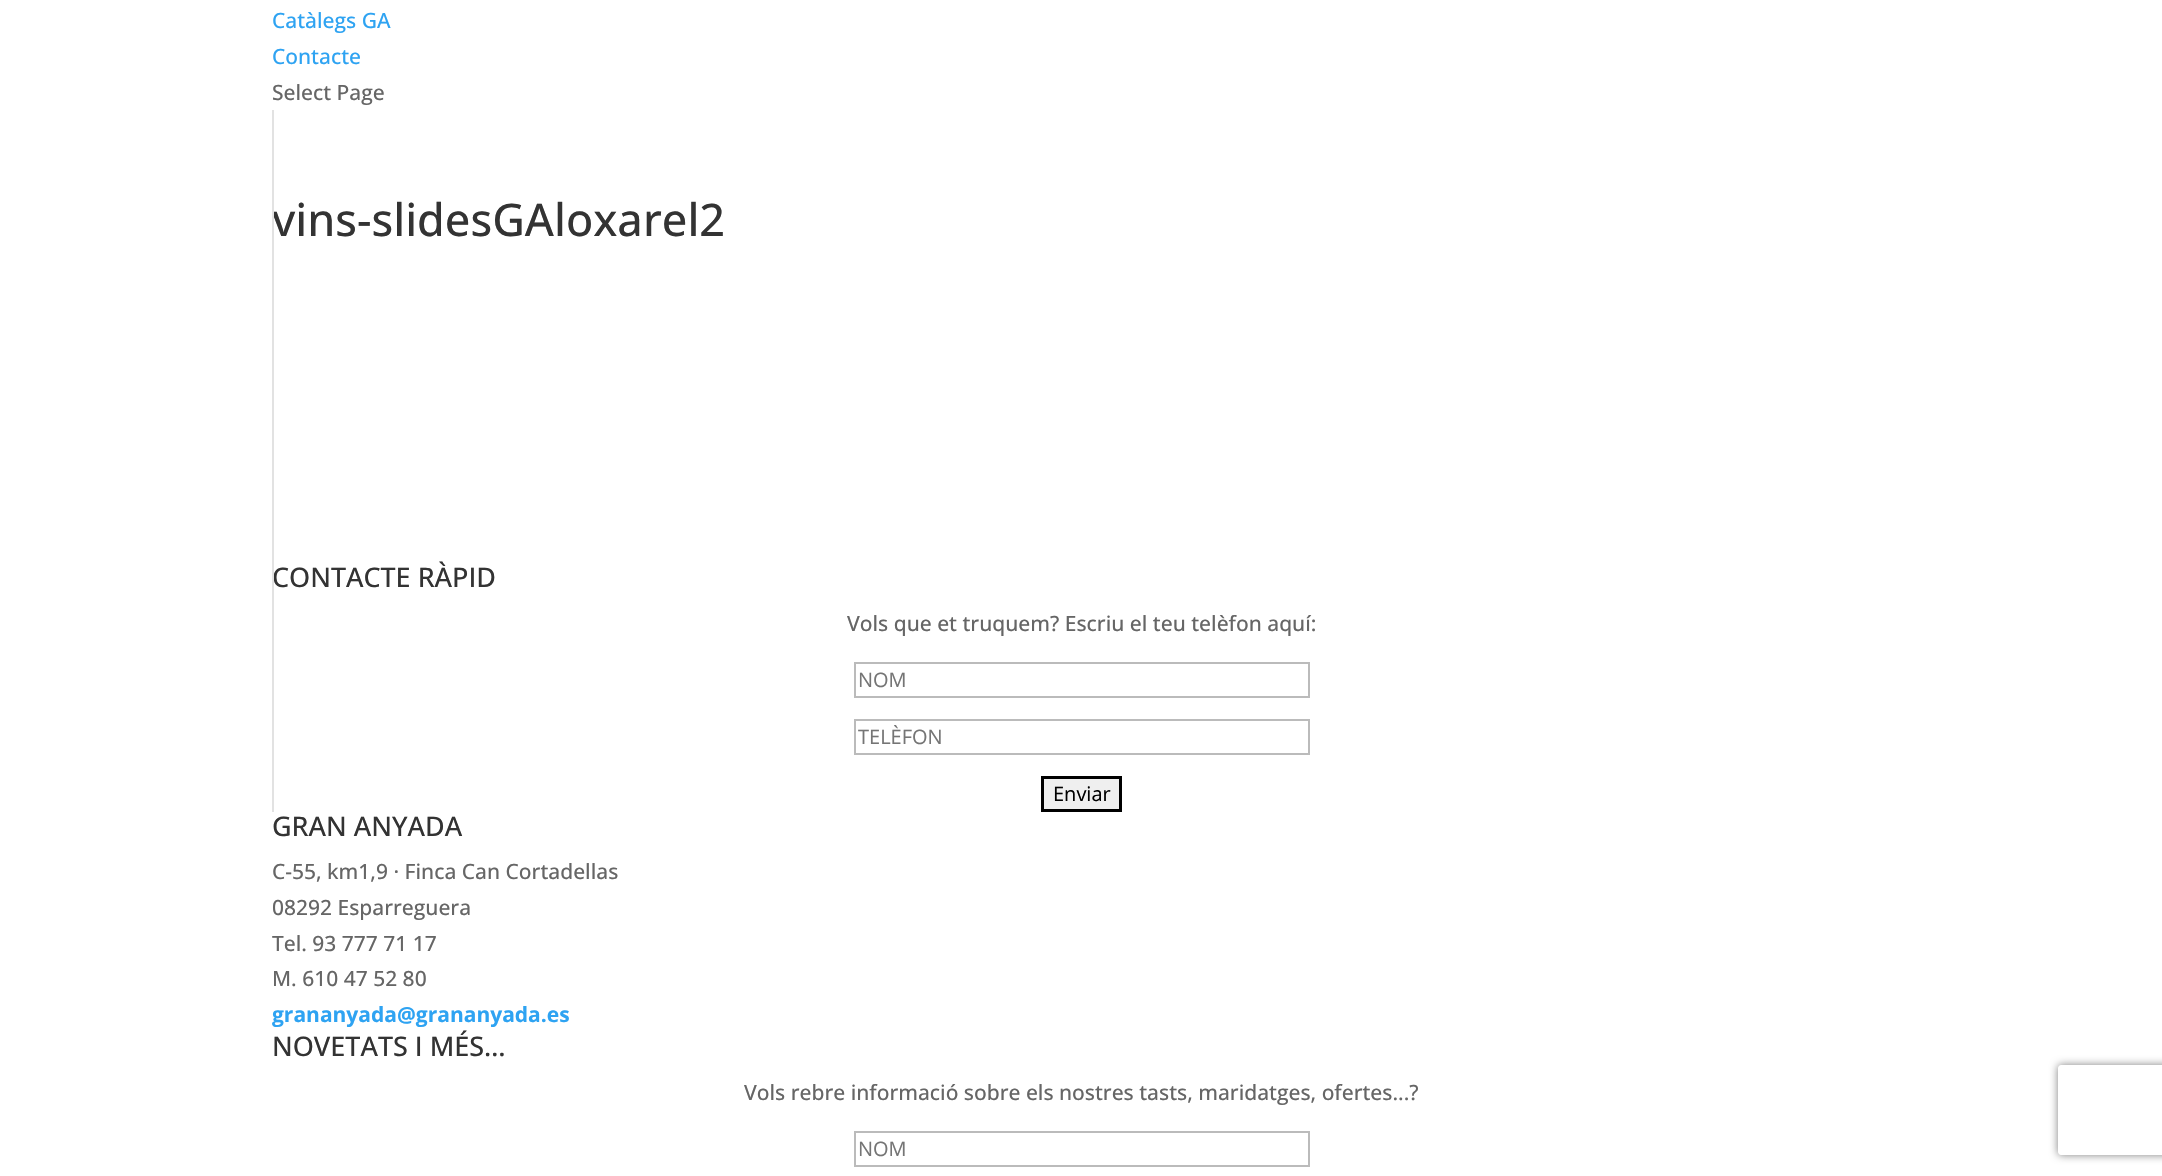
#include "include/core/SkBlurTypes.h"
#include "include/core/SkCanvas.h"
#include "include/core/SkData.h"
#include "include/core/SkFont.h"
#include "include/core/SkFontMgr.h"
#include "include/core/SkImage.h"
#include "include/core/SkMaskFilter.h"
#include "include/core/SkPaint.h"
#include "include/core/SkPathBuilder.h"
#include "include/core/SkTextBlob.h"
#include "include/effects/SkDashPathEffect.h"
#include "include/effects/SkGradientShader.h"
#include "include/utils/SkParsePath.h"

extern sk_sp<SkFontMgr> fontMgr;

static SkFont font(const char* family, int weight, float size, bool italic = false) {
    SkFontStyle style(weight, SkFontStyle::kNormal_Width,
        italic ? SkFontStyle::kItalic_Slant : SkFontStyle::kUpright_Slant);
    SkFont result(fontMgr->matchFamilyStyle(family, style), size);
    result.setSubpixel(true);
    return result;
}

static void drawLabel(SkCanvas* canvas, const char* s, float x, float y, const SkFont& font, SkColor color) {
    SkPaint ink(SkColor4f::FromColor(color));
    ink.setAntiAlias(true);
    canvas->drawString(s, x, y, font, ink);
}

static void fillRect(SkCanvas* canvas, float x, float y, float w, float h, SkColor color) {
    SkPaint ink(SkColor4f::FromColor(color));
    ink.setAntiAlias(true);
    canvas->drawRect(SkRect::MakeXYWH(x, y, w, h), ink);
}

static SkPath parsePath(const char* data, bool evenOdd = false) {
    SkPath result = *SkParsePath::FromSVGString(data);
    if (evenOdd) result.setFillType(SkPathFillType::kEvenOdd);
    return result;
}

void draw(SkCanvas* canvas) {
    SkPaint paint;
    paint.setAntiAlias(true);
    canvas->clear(0xFFFFFFFF);
    SkFont font1 = font("Open Sans", 500, 21);
    drawLabel(canvas, "Catàlegs GA", 272, 28, font1, 0xFF2EA3F2);
    drawLabel(canvas, "Contacte", 272, 64, font1, 0xFF2EA3F2);
    drawLabel(canvas, "Select Page", 272, 100, font1, 0xFF666666);
    SkFont font2 = font("Open Sans", 500, 45);
    drawLabel(canvas, "vins-slidesGAloxarel2", 272, 236, font2, 0xFF333333);
    SkFont font3 = font("Open Sans", 500, 27);
    drawLabel(canvas, "CONTACTE RÀPID", 272, 587, font3, 0xFF333333);
    fillRect(canvas, 272, 110, 2, 702, 0xFFE2E2E2);
    drawLabel(canvas, "Vols que et truquem? Escriu el teu telèfon aquí:", 847, 631, font1, 0xFF666666);
    paint.setStroke(true);
    paint.setStrokeWidth(2);
    paint.setColor(0xFFBBBBBB);
    canvas->drawRect(SkRect::MakeXYWH(855, 663, 454, 34), paint);
    SkFont font4 = font("Open Sans", 400, 20);
    drawLabel(canvas, "NOM", 858, 687, font4, 0xFF757575);
    canvas->drawRect(SkRect::MakeXYWH(855, 720, 454, 34), paint);
    drawLabel(canvas, "TELÈFON", 858, 744, font4, 0xFF757575);
    paint.setStroke(false);
    paint.setColor(0xFFEFEFEF);
    canvas->drawRect(SkRect::MakeXYWH(1042.5f, 777.5f, 78, 33), paint);
    paint.setStroke(true);
    paint.setStrokeWidth(3);
    paint.setColor(0xFF000000);
    canvas->drawRect(SkRect::MakeXYWH(1042.5f, 777.5f, 78, 33), paint);
    drawLabel(canvas, "Enviar", 1053, 801, font4, 0xFF000000);
    drawLabel(canvas, "GRAN ANYADA", 272, 836, font3, 0xFF333333);
    drawLabel(canvas, "C-55, km1,9 · Finca Can Cortadellas", 272, 879, font1, 0xFF666666);
    drawLabel(canvas, "08292 Esparreguera", 272, 915, font1, 0xFF666666);
    drawLabel(canvas, "Tel. 93 777 71 17", 272, 951, font1, 0xFF666666);
    drawLabel(canvas, "M. 610 47 52 80", 272, 986, font1, 0xFF666666);
    SkFont font5 = font("Open Sans", 700, 21);
    drawLabel(canvas, "grananyada@grananyada.es", 272, 1022, font5, 0xFF2EA3F2);
    drawLabel(canvas, "NOVETATS I MÉS…", 272, 1056, font3, 0xFF333333);
    drawLabel(canvas, "Vols rebre informació sobre els nostres tasts, maridatges, ofertes...?", 744, 1100, font1, 0xFF666666);
    paint.setStrokeWidth(2);
    paint.setColor(0xFFBBBBBB);
    canvas->drawRect(SkRect::MakeXYWH(855, 1132, 454, 34), paint);
    drawLabel(canvas, "NOM", 858, 1156, font4, 0xFF757575);
    canvas->save();
    canvas->clipPath(parsePath("M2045 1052H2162V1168H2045ZM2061 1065H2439C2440.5 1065 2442 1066.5 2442 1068V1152C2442 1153.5 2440.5 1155 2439 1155H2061C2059.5 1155 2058 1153.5 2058 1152V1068C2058 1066.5 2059.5 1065 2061 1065Z", true), true);
    paint.setStroke(false);
    paint.setColor(0xFF808080);
    paint.setMaskFilter(SkMaskFilter::MakeBlur(kNormal_SkBlurStyle, 4));
    canvas->drawRoundRect(SkRect::MakeXYWH(2058, 1065, 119, 90), 3, 3, paint);
    paint.setMaskFilter(nullptr);
    canvas->restore();
}
